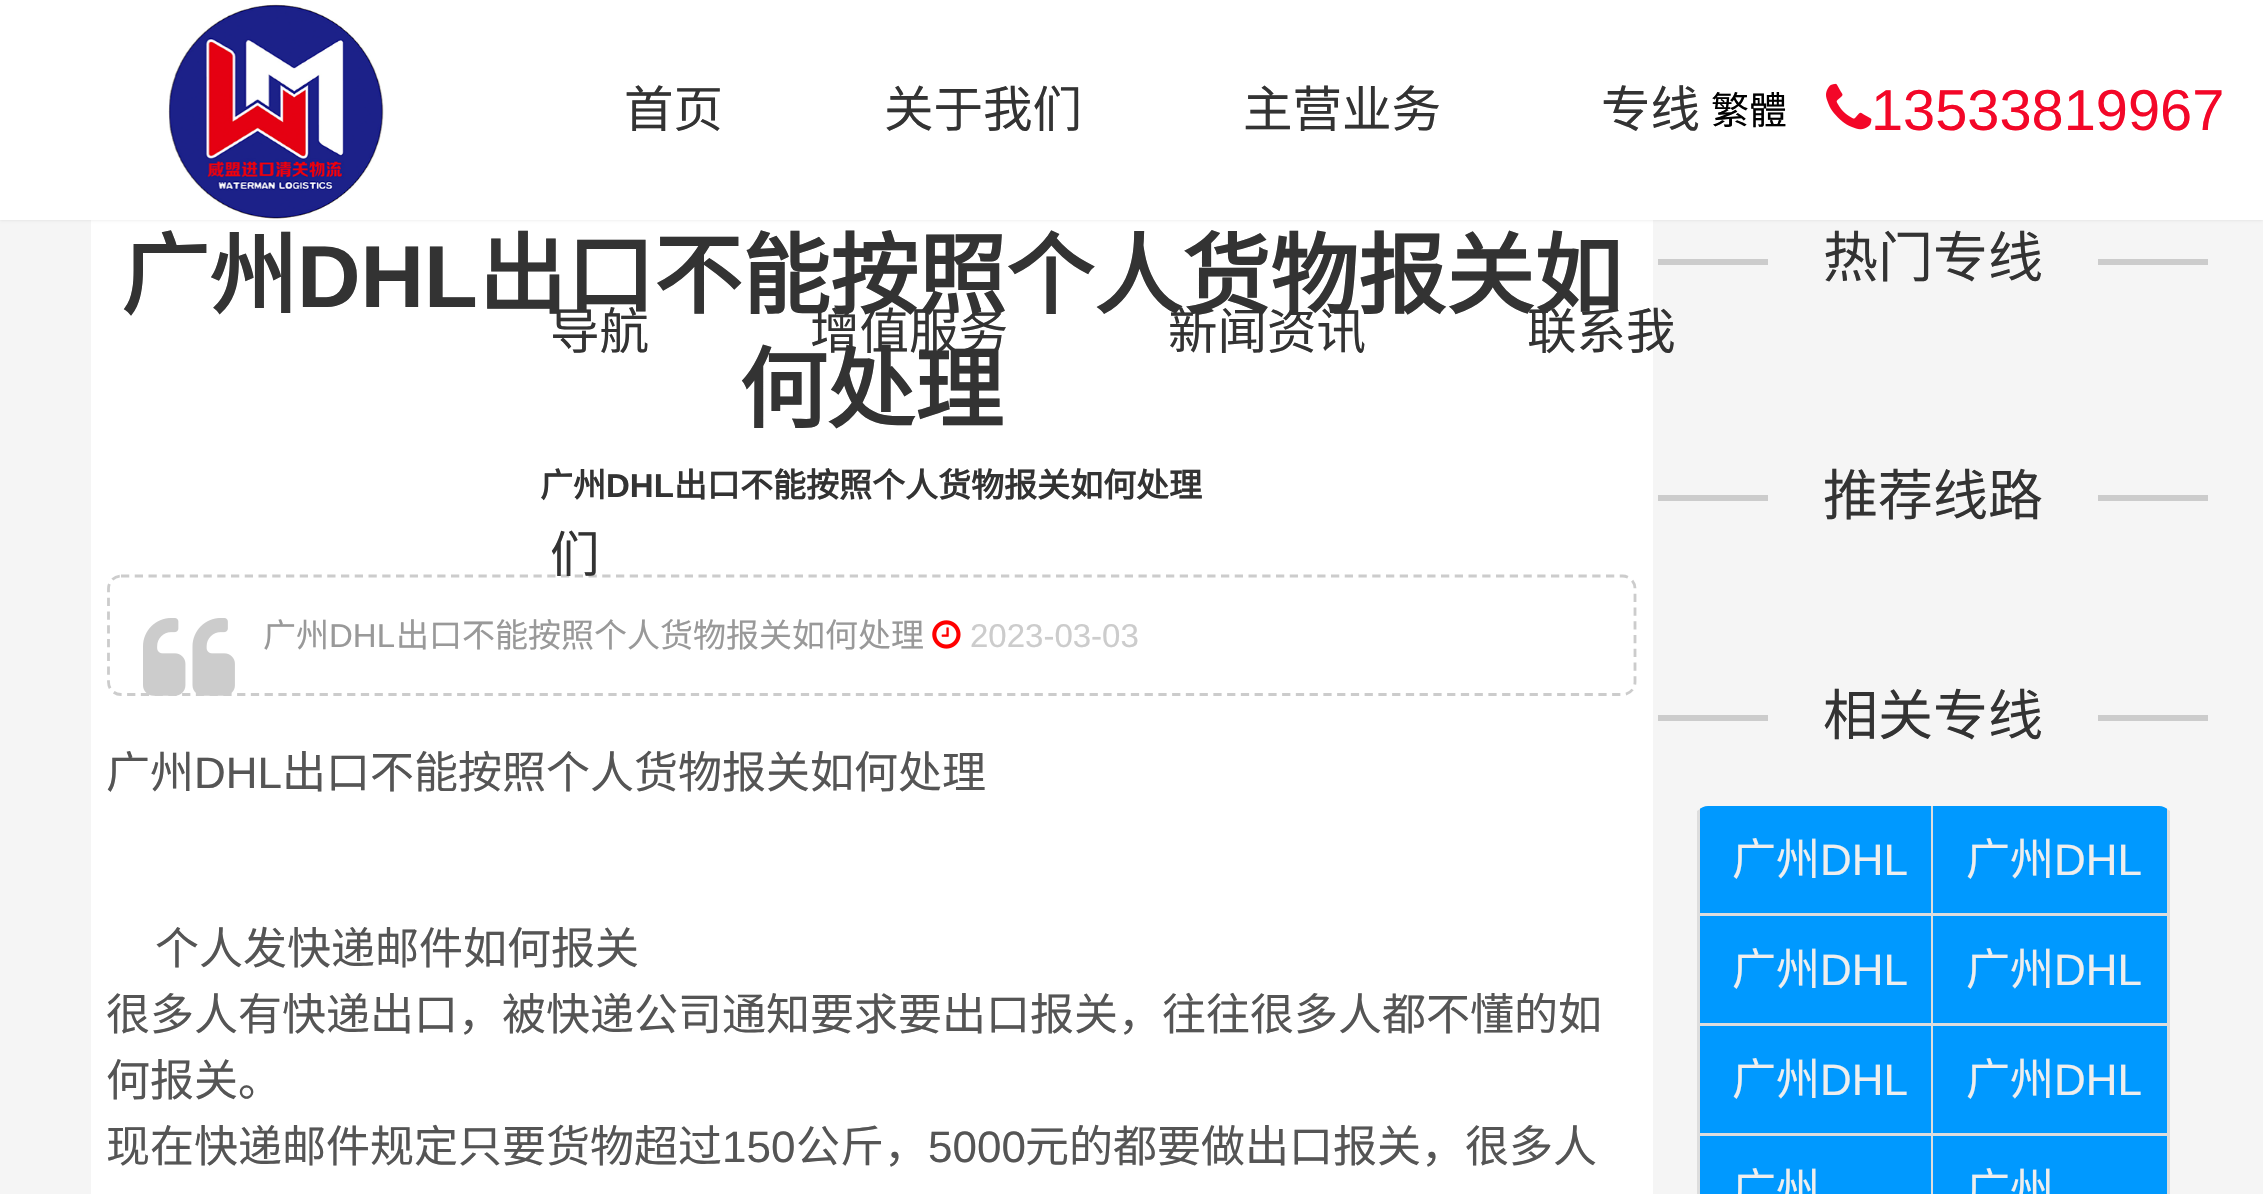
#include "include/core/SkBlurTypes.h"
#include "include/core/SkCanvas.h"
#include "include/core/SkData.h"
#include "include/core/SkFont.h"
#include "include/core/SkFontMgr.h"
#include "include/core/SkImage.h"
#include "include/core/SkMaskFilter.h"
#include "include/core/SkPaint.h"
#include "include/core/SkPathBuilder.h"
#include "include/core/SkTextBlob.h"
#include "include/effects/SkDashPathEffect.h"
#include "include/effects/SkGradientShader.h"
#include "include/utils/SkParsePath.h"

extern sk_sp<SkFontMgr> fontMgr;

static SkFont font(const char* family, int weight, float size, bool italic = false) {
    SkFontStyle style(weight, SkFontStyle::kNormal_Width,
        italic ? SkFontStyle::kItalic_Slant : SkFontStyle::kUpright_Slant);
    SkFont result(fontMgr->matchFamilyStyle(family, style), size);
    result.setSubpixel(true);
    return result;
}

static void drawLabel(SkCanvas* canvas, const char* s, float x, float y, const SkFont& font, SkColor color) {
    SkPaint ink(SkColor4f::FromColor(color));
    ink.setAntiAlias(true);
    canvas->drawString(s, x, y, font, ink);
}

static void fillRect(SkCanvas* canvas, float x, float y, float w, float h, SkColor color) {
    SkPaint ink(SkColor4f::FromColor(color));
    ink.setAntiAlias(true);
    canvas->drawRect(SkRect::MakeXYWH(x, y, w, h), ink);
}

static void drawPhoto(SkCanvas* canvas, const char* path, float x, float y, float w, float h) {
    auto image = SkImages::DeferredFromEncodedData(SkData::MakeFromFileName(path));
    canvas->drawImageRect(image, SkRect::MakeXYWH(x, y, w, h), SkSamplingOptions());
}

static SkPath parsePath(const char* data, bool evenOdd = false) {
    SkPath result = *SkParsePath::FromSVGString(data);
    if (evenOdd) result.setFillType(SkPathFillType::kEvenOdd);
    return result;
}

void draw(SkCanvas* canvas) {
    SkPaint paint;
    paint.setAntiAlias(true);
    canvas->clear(0xFFF5F5F5);
    fillRect(canvas, 91, 220, 1562, 974, 0xFFFFFFFF);
    paint.setColor(0x1A000000);
    paint.setMaskFilter(SkMaskFilter::MakeBlur(kNormal_SkBlurStyle, 1.5f));
    canvas->drawRect(SkRect::MakeXYWH(0, 0, 2263, 220), paint);
    paint.setMaskFilter(nullptr);
    fillRect(canvas, 0, 0, 2263, 220, 0xFFFFFFFF);
    drawPhoto(canvas, "assets/img1.png", 168, 4, 216, 215);
    SkFont font1 = font("Noto Sans CJK SC", 400, 49.5f);
    drawLabel(canvas, "首页", 624, 127, font1, 0xFF333333);
    drawLabel(canvas, "关于我们", 884, 127, font1, 0xFF333333);
    drawLabel(canvas, "主营业务", 1243, 127, font1, 0xFF333333);
    drawLabel(canvas, "专线", 1601, 127, font1, 0xFF333333);
    drawLabel(canvas, "导航", 550, 349, font1, 0xFF333333);
    drawLabel(canvas, "增值服务", 810, 349, font1, 0xFF333333);
    drawLabel(canvas, "新闻资讯", 1168, 349, font1, 0xFF333333);
    drawLabel(canvas, "联系我", 1527, 349, font1, 0xFF333333);
    paint.setStroke(true);
    paint.setStrokeWidth(2.8f);
    paint.setColor(0xFFCCCCCC);
    paint.setPathEffect(SkDashPathEffect::Make({{8.25f, 5.5f}}, 0));
    canvas->drawPath(parsePath("M121 576H1622.5C1629.5 576 1635 581.5 1635 588.5V682C1635 689 1629.5 694.5 1622.5 694.5H121C114 694.5 108.5 689 108.5 682V588.5C108.5 581.5 114 576 121 576Z"), paint);
    paint.setPathEffect(nullptr);
    drawLabel(canvas, "们", 550, 572, font1, 0xFF333333);
    SkFont font2 = font("Noto Sans CJK SC", 400, 38);
    drawLabel(canvas, "繁體", 1711, 124, font2, 0xFF000000);
    drawPhoto(canvas, "assets/img2.png", 1826, 83, 46, 47);
    SkFont font3 = font("Liberation Sans", 400, 57.75f);
    drawLabel(canvas, "13533819967", 1871, 130, font3, 0xFFF30728);
    SkFont font4 = font("Noto Sans CJK SC", 700, 88);
    drawLabel(canvas, "广州", 121, 307, font4, 0xFF333333);
    SkFont font5 = font("Liberation Sans", 700, 88);
    drawLabel(canvas, "DHL", 297, 307, font5, 0xFF333333);
    drawLabel(canvas, "出口不能按照个人货物报关如", 478, 307, font4, 0xFF333333);
    drawLabel(canvas, "何处理", 739, 421, font4, 0xFF333333);
    SkFont font6 = font("Noto Sans CJK SC", 700, 33);
    drawLabel(canvas, "广州", 540, 497, font6, 0xFF333333);
    SkFont font7 = font("Liberation Sans", 700, 33);
    drawLabel(canvas, "DHL", 606, 497, font7, 0xFF333333);
    drawLabel(canvas, "出口不能按照个人货物报关如何处理", 674, 497, font6, 0xFF333333);
    drawPhoto(canvas, "assets/img3.png", 143, 618, 92, 78);
    SkFont font8 = font("Noto Sans CJK SC", 400, 33);
    drawLabel(canvas, "广州", 263, 647, font8, 0xFF999999);
    SkFont font9 = font("Liberation Sans", 400, 33);
    drawLabel(canvas, "DHL", 329, 647, font9, 0xFF999999);
    drawLabel(canvas, "出口不能按照个人货物报关如何处理", 396, 647, font8, 0xFF999999);
    drawPhoto(canvas, "assets/img4.png", 932, 620, 29, 29);
    drawLabel(canvas, "2023-03-03", 970, 647, font9, 0xFFCCCCCC);
    SkFont font10 = font("Noto Sans CJK SC", 400, 44);
    drawLabel(canvas, "广州", 106, 788, font10, 0xFF555555);
    SkFont font11 = font("Liberation Sans", 400, 44);
    drawLabel(canvas, "DHL", 194, 788, font11, 0xFF555555);
    drawLabel(canvas, "出口不能按照个人货物报关如何处理", 282, 788, font10, 0xFF555555);
    drawLabel(canvas, "个人发快递邮件如何报关", 155, 964, font10, 0xFF555555);
    drawLabel(canvas, "很多人有快递出口，被快递公司通知要求要出口报关，往往很多人都不懂的如", 106, 1030, font10, 0xFF555555);
    drawLabel(canvas, "何报关。", 106, 1096, font10, 0xFF555555);
    drawLabel(canvas, "现在快递邮件规定只要货物超过", 106, 1162, font10, 0xFF555555);
    drawLabel(canvas, "150", 722, 1162, font11, 0xFF555555);
    drawLabel(canvas, "公斤，", 796, 1162, font10, 0xFF555555);
    drawLabel(canvas, "5000", 928, 1162, font11, 0xFF555555);
    drawLabel(canvas, "元的都要做出口报关，很多人", 1025, 1162, font10, 0xFF555555);
    fillRect(canvas, 1658, 259, 110, 6, 0xFFCCCCCC);
    SkFont font12 = font("Noto Sans CJK SC", 400, 55);
    drawLabel(canvas, "热门专线", 1823, 277, font12, 0xFF333333);
    fillRect(canvas, 2098, 259, 110, 6, 0xFFCCCCCC);
    fillRect(canvas, 1658, 495, 110, 6, 0xFFCCCCCC);
    drawLabel(canvas, "推荐线路", 1823, 515, font12, 0xFF333333);
    fillRect(canvas, 2098, 495, 110, 6, 0xFFCCCCCC);
    fillRect(canvas, 1658, 715, 110, 6, 0xFFCCCCCC);
    drawLabel(canvas, "相关专线", 1823, 735, font12, 0xFF333333);
    fillRect(canvas, 2098, 715, 110, 6, 0xFFCCCCCC);
    paint.setStroke(false);
    paint.setColor(0xFFDDDDDD);
    canvas->drawPath(parsePath("M1936 806V919H1697V811L1700 809V916H1933V806Z"), paint);
    canvas->save();
    canvas->clipPath(parsePath("M1708 806H2159C2166.5 806 2173 812.5 2173 820V1232C2173 1239.5 2166.5 1246 2159 1246H1708C1700.5 1246 1694 1239.5 1694 1232V820C1694 812.5 1700.5 806 1708 806Z"), true);
    fillRect(canvas, 1700, 806, 231, 107, 0xFF0099FF);
    canvas->restore();
    drawLabel(canvas, "广州", 1732, 875, font10, 0xFFEEEEEE);
    drawLabel(canvas, "DHL", 1820, 875, font11, 0xFFEEEEEE);
    canvas->drawPath(parsePath("M1934 806V916H2167V809L2170 811V919H1931V806Z"), paint);
    canvas->save();
    canvas->clipPath(parsePath("M1708 806H2159C2166.5 806 2173 812.5 2173 820V1232C2173 1239.5 2166.5 1246 2159 1246H1708C1700.5 1246 1694 1239.5 1694 1232V820C1694 812.5 1700.5 806 1708 806Z"), true);
    fillRect(canvas, 1933, 806, 234, 107, 0xFF0099FF);
    canvas->restore();
    drawLabel(canvas, "广州", 1966, 875, font10, 0xFFEEEEEE);
    drawLabel(canvas, "DHL", 2054, 875, font11, 0xFFEEEEEE);
    paint.setStroke(true);
    paint.setStrokeWidth(3);
    canvas->drawRect(SkRect::MakeXYWH(1698.5f, 914.5f, 236, 113), paint);
    fillRect(canvas, 1700, 916, 231, 107, 0xFF0099FF);
    drawLabel(canvas, "广州", 1732, 985, font10, 0xFFEEEEEE);
    drawLabel(canvas, "DHL", 1820, 985, font11, 0xFFEEEEEE);
    canvas->drawRect(SkRect::MakeXYWH(1932.5f, 914.5f, 236, 113), paint);
    fillRect(canvas, 1933, 916, 234, 107, 0xFF0099FF);
    drawLabel(canvas, "广州", 1966, 985, font10, 0xFFEEEEEE);
    drawLabel(canvas, "DHL", 2054, 985, font11, 0xFFEEEEEE);
    canvas->drawRect(SkRect::MakeXYWH(1698.5f, 1024.5f, 236, 113), paint);
    fillRect(canvas, 1700, 1026, 231, 107, 0xFF0099FF);
    drawLabel(canvas, "广州", 1732, 1095, font10, 0xFFEEEEEE);
    drawLabel(canvas, "DHL", 1820, 1095, font11, 0xFFEEEEEE);
    canvas->drawRect(SkRect::MakeXYWH(1932.5f, 1024.5f, 236, 113), paint);
    fillRect(canvas, 1933, 1026, 234, 107, 0xFF0099FF);
    drawLabel(canvas, "广州", 1966, 1095, font10, 0xFFEEEEEE);
    drawLabel(canvas, "DHL", 2054, 1095, font11, 0xFFEEEEEE);
    paint.setStroke(false);
    canvas->drawPath(parsePath("M1697 1133V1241L1700 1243V1136H1933V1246H1936V1133Z"), paint);
    fillRect(canvas, 1700, 1136, 231, 58, 0xFF0099FF);
    drawLabel(canvas, "广州", 1732, 1205, font10, 0xFFEEEEEE);
    canvas->drawPath(parsePath("M1931 1133V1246H1934V1136H2167V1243L2170 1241V1133Z"), paint);
    fillRect(canvas, 1933, 1136, 234, 58, 0xFF0099FF);
    drawLabel(canvas, "广州", 1966, 1205, font10, 0xFFEEEEEE);
}
